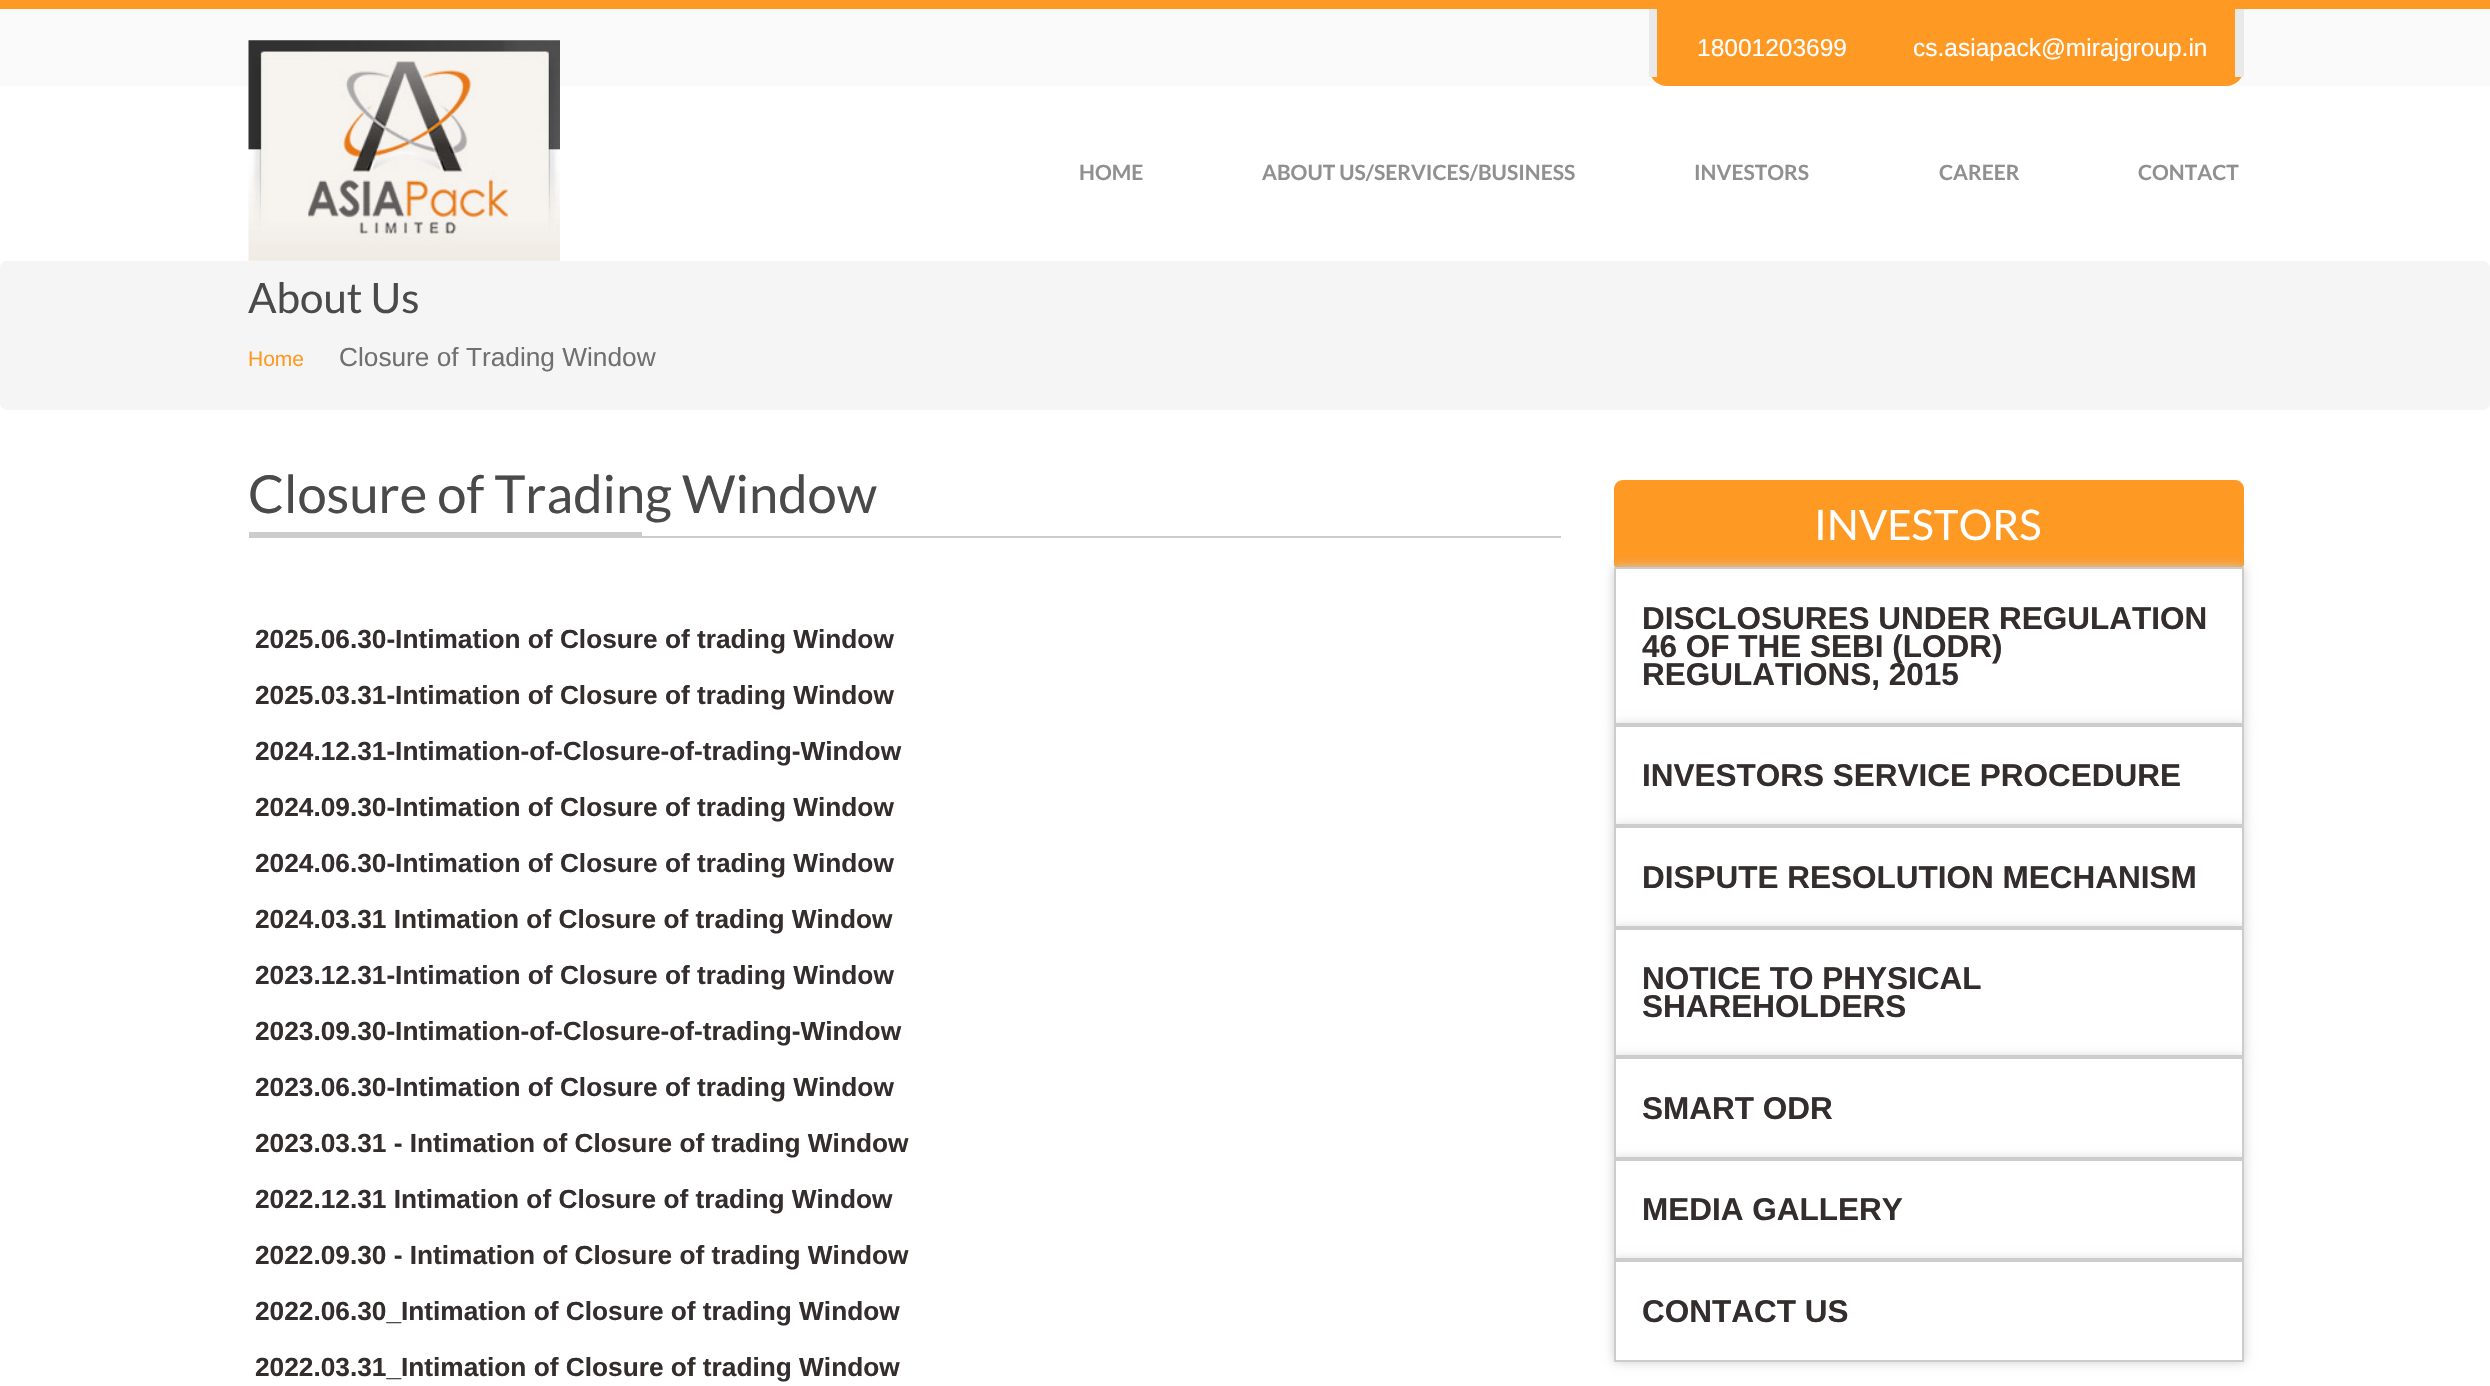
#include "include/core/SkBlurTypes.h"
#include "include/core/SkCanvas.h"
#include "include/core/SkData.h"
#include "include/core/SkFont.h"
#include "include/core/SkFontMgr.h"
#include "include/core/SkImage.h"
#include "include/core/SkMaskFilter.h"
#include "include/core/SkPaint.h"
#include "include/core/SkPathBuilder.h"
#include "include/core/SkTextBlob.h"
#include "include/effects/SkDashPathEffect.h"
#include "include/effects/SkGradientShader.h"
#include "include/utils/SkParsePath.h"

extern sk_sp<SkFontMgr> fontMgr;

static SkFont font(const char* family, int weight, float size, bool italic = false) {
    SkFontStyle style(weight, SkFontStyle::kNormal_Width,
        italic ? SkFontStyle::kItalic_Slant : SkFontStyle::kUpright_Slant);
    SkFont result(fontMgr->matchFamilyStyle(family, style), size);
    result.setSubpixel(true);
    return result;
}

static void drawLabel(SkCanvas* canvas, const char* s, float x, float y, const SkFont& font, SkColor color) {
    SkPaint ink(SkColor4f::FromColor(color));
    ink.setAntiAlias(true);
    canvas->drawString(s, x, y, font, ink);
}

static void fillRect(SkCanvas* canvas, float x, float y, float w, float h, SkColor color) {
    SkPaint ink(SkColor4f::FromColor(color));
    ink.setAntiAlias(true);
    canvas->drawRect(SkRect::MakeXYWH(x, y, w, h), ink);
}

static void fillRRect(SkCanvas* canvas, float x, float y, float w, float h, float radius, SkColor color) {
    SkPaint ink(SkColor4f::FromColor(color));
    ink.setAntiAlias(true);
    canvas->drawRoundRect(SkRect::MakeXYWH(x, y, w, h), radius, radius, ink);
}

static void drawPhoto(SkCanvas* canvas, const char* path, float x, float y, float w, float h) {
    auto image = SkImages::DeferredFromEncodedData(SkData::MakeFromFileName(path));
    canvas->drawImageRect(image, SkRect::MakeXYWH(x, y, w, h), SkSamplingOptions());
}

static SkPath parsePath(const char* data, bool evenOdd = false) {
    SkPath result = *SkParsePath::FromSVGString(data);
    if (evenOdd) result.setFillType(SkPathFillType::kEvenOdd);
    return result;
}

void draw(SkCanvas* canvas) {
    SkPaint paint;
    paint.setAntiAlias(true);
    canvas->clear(0xFFFFFFFF);
    fillRect(canvas, 0, 9, 2490, 77, 0xFFFAFAFA);
    fillRect(canvas, 0, 0, 2490, 9, 0xFFFE9923);
    paint.setColor(0xFFFE9923);
    canvas->drawPath(parsePath("M1649 9H2244V68C2244 78 2236 86 2226 86H1667C1657 86 1649 78 1649 68Z"), paint);
    fillRect(canvas, 2235, 9, 9, 68, 0xFFE9E9E9);
    fillRect(canvas, 1649, 9, 8, 68, 0xFFE9E9E9);
    SkFont font1 = font("Liberation Sans", 400, 24.5f);
    drawLabel(canvas, "18001203699", 1697, 56, font1, 0xFFFFFFFF);
    drawLabel(canvas, "cs.asiapack@mirajgroup.in", 1913, 56, font1, 0xFFFFFFFF);
    drawPhoto(canvas, "assets/img1.png", 248, 40, 312, 221);
    SkFont font2 = font("Lato", 700, 21);
    drawLabel(canvas, "HOME", 1079, 180, font2, 0xFF909090);
    drawLabel(canvas, "ABOUT US/SERVICES/BUSINESS", 1262, 180, font2, 0xFF909090);
    drawLabel(canvas, "INVESTORS", 1694, 180, font2, 0xFF909090);
    drawLabel(canvas, "CAREER", 1939, 180, font2, 0xFF909090);
    drawLabel(canvas, "CONTACT", 2138, 180, font2, 0xFF909090);
    fillRRect(canvas, 0, 261, 2490, 149, 7, 0xFFF5F5F5);
    SkFont font3 = font("Lato", 400, 42);
    drawLabel(canvas, "About Us", 248, 313, font3, 0xFF4A4A4A);
    SkFont font4 = font("Liberation Sans", 400, 21);
    drawLabel(canvas, "Home", 248, 366, font4, 0xFFFE9923);
    SkFont font5 = font("Liberation Sans", 400, 26.25f);
    drawLabel(canvas, "Closure of Trading Window", 339, 366, font5, 0xFF707070);
    SkFont font6 = font("Lato", 400, 52.5f);
    drawLabel(canvas, "Closure of Trading Window", 248, 513, font6, 0xFF4A4A4A);
    fillRect(canvas, 249, 532, 393, 4, 0xFFCCCCCC);
    fillRect(canvas, 249, 536, 1312, 2, 0xFFCCCCCC);
    SkFont font7 = font("Liberation Sans", 700, 26.25f);
    drawLabel(canvas, "2025.06.30-Intimation of Closure of trading Window", 255, 648, font7, 0xFF332D2D);
    drawLabel(canvas, "2025.03.31-Intimation of Closure of trading Window", 255, 704, font7, 0xFF332D2D);
    drawLabel(canvas, "2024.12.31-Intimation-of-Closure-of-trading-Window", 255, 760, font7, 0xFF332D2D);
    drawLabel(canvas, "2024.09.30-Intimation of Closure of trading Window", 255, 816, font7, 0xFF332D2D);
    drawLabel(canvas, "2024.06.30-Intimation of Closure of trading Window", 255, 872, font7, 0xFF332D2D);
    drawLabel(canvas, "2024.03.31 Intimation of Closure of trading Window", 255, 928, font7, 0xFF332D2D);
    drawLabel(canvas, "2023.12.31-Intimation of Closure of trading Window", 255, 984, font7, 0xFF332D2D);
    drawLabel(canvas, "2023.09.30-Intimation-of-Closure-of-trading-Window", 255, 1040, font7, 0xFF332D2D);
    drawLabel(canvas, "2023.06.30-Intimation of Closure of trading Window", 255, 1096, font7, 0xFF332D2D);
    drawLabel(canvas, "2023.03.31 - Intimation of Closure of trading Window", 255, 1152, font7, 0xFF332D2D);
    drawLabel(canvas, "2022.12.31 Intimation of Closure of trading Window", 255, 1208, font7, 0xFF332D2D);
    drawLabel(canvas, "2022.09.30 - Intimation of Closure of trading Window", 255, 1264, font7, 0xFF332D2D);
    drawLabel(canvas, "2022.06.30_Intimation of Closure of trading Window", 255, 1320, font7, 0xFF332D2D);
    drawLabel(canvas, "2022.03.31_Intimation of Closure of trading Window", 255, 1376, font7, 0xFF332D2D);
    canvas->drawPath(parsePath("M1623 480H2235C2240 480 2244 484 2244 489V565C2244 566 2243 567 2242 567H1616C1615 567 1614 566 1614 565V489C1614 484 1618 480 1623 480Z"), paint);
    drawLabel(canvas, "INVESTORS", 1814, 540, font3, 0xFFFFFFFF);
    paint.setColor(0xFFCECECE);
    paint.setMaskFilter(SkMaskFilter::MakeBlur(kNormal_SkBlurStyle, 5));
    canvas->drawRect(SkRect::MakeXYWH(1614, 567, 630, 158), paint);
    paint.setMaskFilter(nullptr);
    paint.setColor(0xFFFFFFFF);
    canvas->drawRect(SkRect::MakeXYWH(1615, 568, 628, 156), paint);
    paint.setStroke(true);
    paint.setStrokeWidth(2);
    paint.setColor(0xFFCCCCCC);
    canvas->drawRect(SkRect::MakeXYWH(1615, 568, 628, 156), paint);
    SkFont font8 = font("Liberation Sans", 700, 31.5f);
    drawLabel(canvas, "DISCLOSURES UNDER REGULATION", 1642, 629, font8, 0xFF332D2D);
    drawLabel(canvas, "46 OF THE SEBI (LODR)", 1642, 657, font8, 0xFF332D2D);
    drawLabel(canvas, "REGULATIONS, 2015", 1642, 685, font8, 0xFF332D2D);
    paint.setStroke(false);
    paint.setColor(0xFFCECECE);
    paint.setMaskFilter(SkMaskFilter::MakeBlur(kNormal_SkBlurStyle, 5));
    canvas->drawRect(SkRect::MakeXYWH(1614, 725, 630, 101), paint);
    paint.setMaskFilter(nullptr);
    paint.setColor(0xFFFFFFFF);
    canvas->drawRect(SkRect::MakeXYWH(1615, 726, 628, 99), paint);
    paint.setStroke(true);
    paint.setColor(0xFFCCCCCC);
    canvas->drawRect(SkRect::MakeXYWH(1615, 726, 628, 99), paint);
    drawLabel(canvas, "INVESTORS SERVICE PROCEDURE", 1642, 786, font8, 0xFF332D2D);
    paint.setStroke(false);
    paint.setColor(0xFFCECECE);
    paint.setMaskFilter(SkMaskFilter::MakeBlur(kNormal_SkBlurStyle, 5));
    canvas->drawRect(SkRect::MakeXYWH(1614, 826, 630, 102), paint);
    paint.setMaskFilter(nullptr);
    paint.setColor(0xFFFFFFFF);
    canvas->drawRect(SkRect::MakeXYWH(1615, 827, 628, 100), paint);
    paint.setStroke(true);
    paint.setColor(0xFFCCCCCC);
    canvas->drawRect(SkRect::MakeXYWH(1615, 827, 628, 100), paint);
    drawLabel(canvas, "DISPUTE RESOLUTION MECHANISM", 1642, 888, font8, 0xFF332D2D);
    paint.setStroke(false);
    paint.setColor(0xFFCECECE);
    paint.setMaskFilter(SkMaskFilter::MakeBlur(kNormal_SkBlurStyle, 5));
    canvas->drawRect(SkRect::MakeXYWH(1614, 928, 630, 129), paint);
    paint.setMaskFilter(nullptr);
    paint.setColor(0xFFFFFFFF);
    canvas->drawRect(SkRect::MakeXYWH(1615, 929, 628, 127), paint);
    paint.setStroke(true);
    paint.setColor(0xFFCCCCCC);
    canvas->drawRect(SkRect::MakeXYWH(1615, 929, 628, 127), paint);
    drawLabel(canvas, "NOTICE TO PHYSICAL", 1642, 989, font8, 0xFF332D2D);
    drawLabel(canvas, "SHAREHOLDERS", 1642, 1017, font8, 0xFF332D2D);
    paint.setStroke(false);
    paint.setColor(0xFFCECECE);
    paint.setMaskFilter(SkMaskFilter::MakeBlur(kNormal_SkBlurStyle, 5));
    canvas->drawRect(SkRect::MakeXYWH(1614, 1057, 630, 102), paint);
    paint.setMaskFilter(nullptr);
    paint.setColor(0xFFFFFFFF);
    canvas->drawRect(SkRect::MakeXYWH(1615, 1058, 628, 100), paint);
    paint.setStroke(true);
    paint.setColor(0xFFCCCCCC);
    canvas->drawRect(SkRect::MakeXYWH(1615, 1058, 628, 100), paint);
    drawLabel(canvas, "SMART ODR", 1642, 1119, font8, 0xFF332D2D);
    paint.setStroke(false);
    paint.setColor(0xFFCECECE);
    paint.setMaskFilter(SkMaskFilter::MakeBlur(kNormal_SkBlurStyle, 5));
    canvas->drawRect(SkRect::MakeXYWH(1614, 1159, 630, 101), paint);
    paint.setMaskFilter(nullptr);
    paint.setColor(0xFFFFFFFF);
    canvas->drawRect(SkRect::MakeXYWH(1615, 1160, 628, 99), paint);
    paint.setStroke(true);
    paint.setColor(0xFFCCCCCC);
    canvas->drawRect(SkRect::MakeXYWH(1615, 1160, 628, 99), paint);
    drawLabel(canvas, "MEDIA GALLERY", 1642, 1220, font8, 0xFF332D2D);
    paint.setStroke(false);
    paint.setColor(0xFFCECECE);
    paint.setMaskFilter(SkMaskFilter::MakeBlur(kNormal_SkBlurStyle, 5));
    canvas->drawRect(SkRect::MakeXYWH(1614, 1260, 630, 102), paint);
    paint.setMaskFilter(nullptr);
    paint.setColor(0xFFFFFFFF);
    canvas->drawRect(SkRect::MakeXYWH(1615, 1261, 628, 100), paint);
    paint.setStroke(true);
    paint.setColor(0xFFCCCCCC);
    canvas->drawRect(SkRect::MakeXYWH(1615, 1261, 628, 100), paint);
    drawLabel(canvas, "CONTACT US", 1642, 1322, font8, 0xFF332D2D);
}
